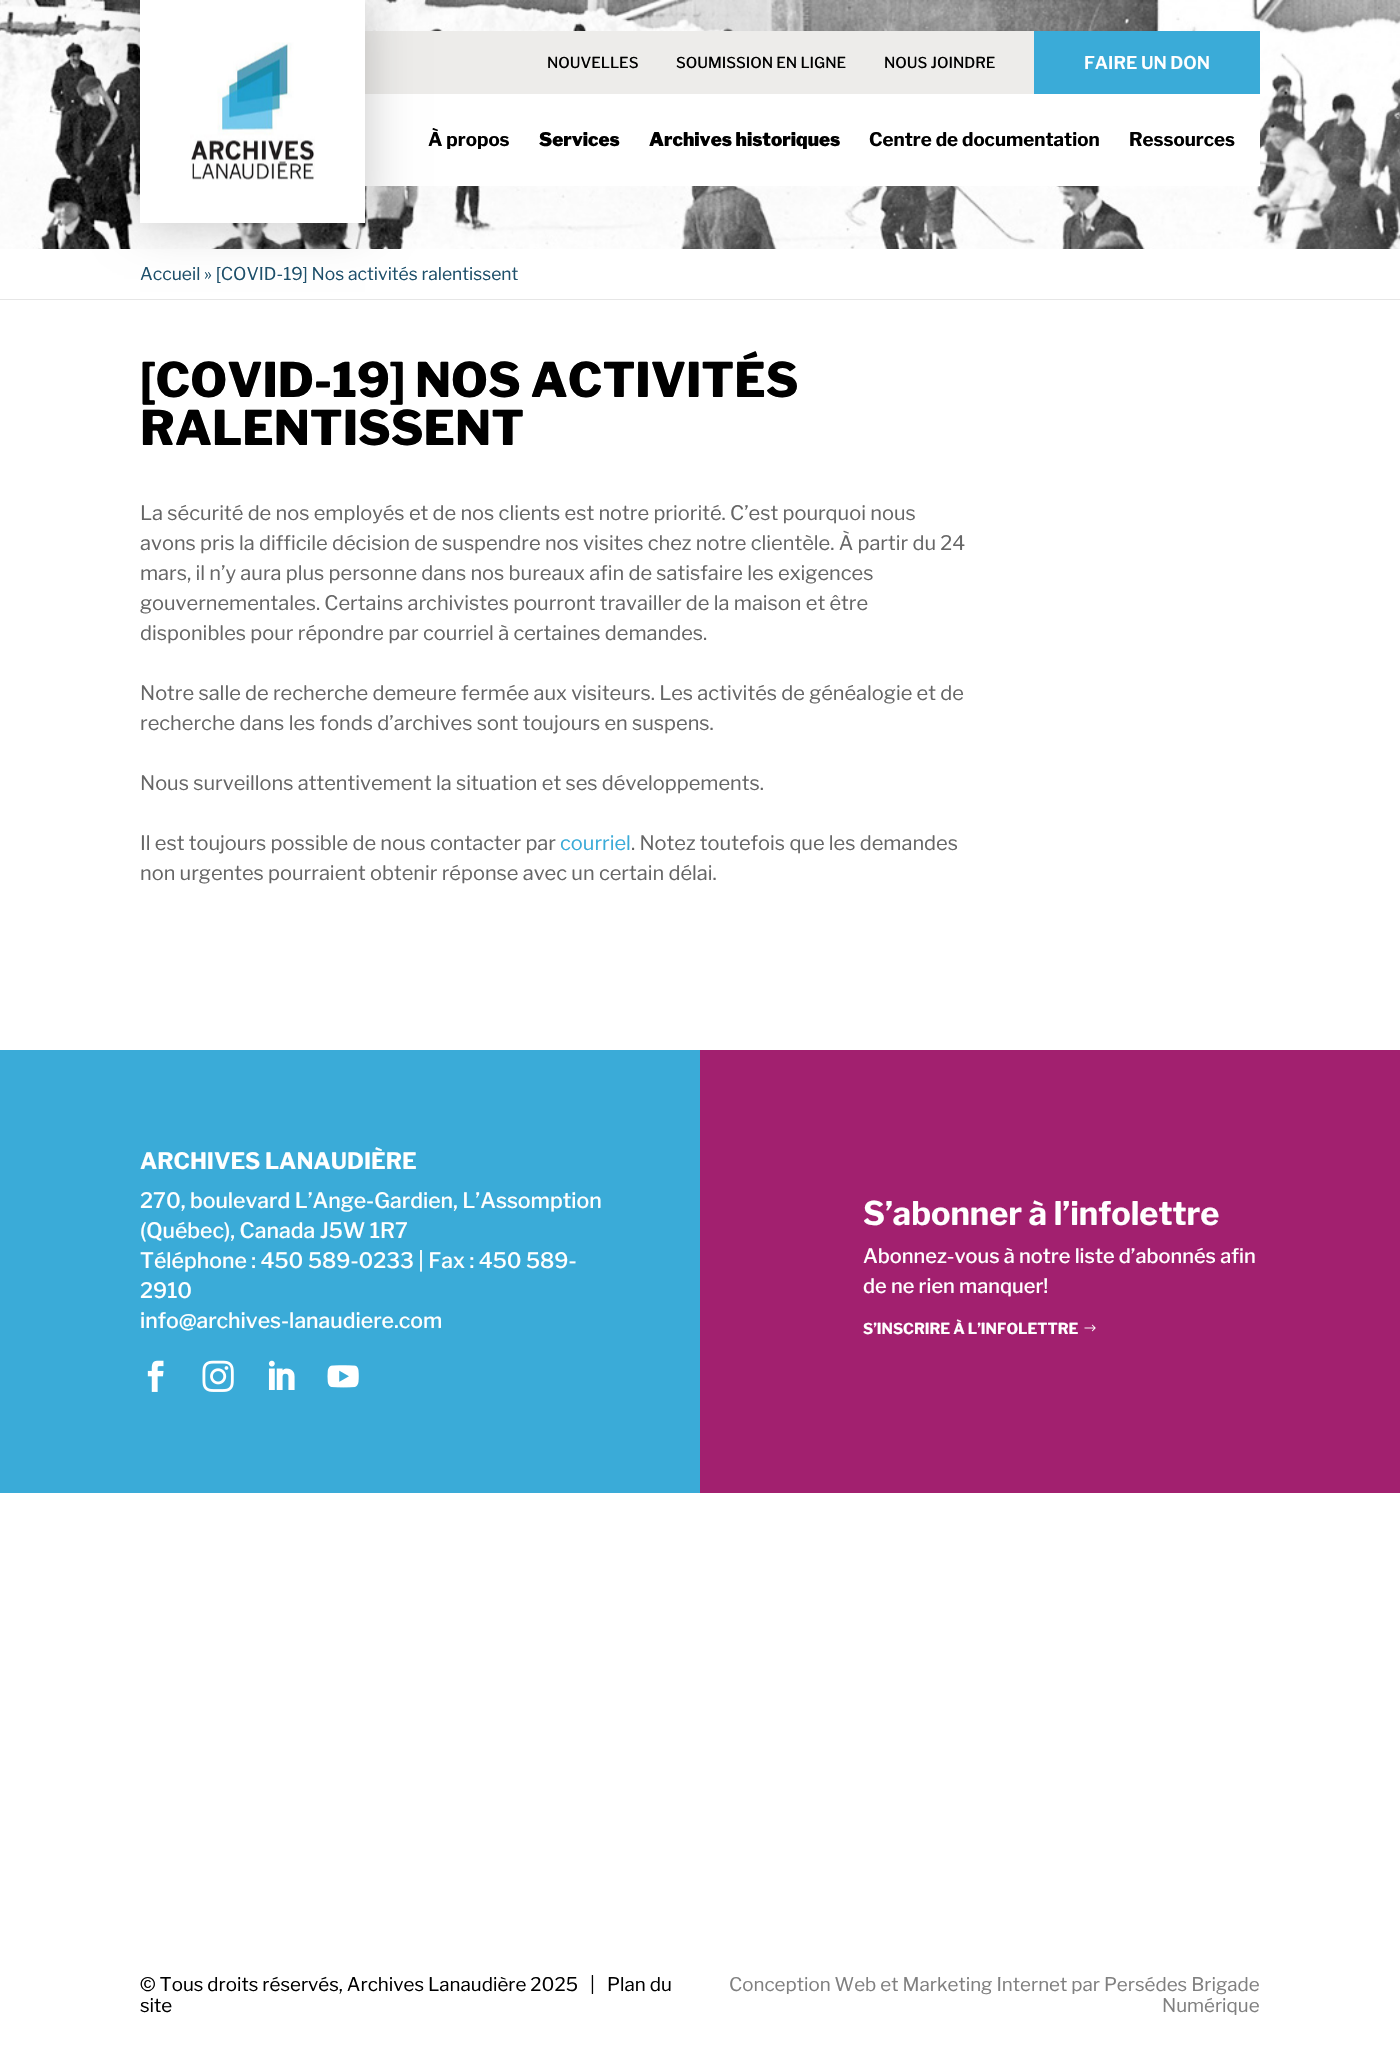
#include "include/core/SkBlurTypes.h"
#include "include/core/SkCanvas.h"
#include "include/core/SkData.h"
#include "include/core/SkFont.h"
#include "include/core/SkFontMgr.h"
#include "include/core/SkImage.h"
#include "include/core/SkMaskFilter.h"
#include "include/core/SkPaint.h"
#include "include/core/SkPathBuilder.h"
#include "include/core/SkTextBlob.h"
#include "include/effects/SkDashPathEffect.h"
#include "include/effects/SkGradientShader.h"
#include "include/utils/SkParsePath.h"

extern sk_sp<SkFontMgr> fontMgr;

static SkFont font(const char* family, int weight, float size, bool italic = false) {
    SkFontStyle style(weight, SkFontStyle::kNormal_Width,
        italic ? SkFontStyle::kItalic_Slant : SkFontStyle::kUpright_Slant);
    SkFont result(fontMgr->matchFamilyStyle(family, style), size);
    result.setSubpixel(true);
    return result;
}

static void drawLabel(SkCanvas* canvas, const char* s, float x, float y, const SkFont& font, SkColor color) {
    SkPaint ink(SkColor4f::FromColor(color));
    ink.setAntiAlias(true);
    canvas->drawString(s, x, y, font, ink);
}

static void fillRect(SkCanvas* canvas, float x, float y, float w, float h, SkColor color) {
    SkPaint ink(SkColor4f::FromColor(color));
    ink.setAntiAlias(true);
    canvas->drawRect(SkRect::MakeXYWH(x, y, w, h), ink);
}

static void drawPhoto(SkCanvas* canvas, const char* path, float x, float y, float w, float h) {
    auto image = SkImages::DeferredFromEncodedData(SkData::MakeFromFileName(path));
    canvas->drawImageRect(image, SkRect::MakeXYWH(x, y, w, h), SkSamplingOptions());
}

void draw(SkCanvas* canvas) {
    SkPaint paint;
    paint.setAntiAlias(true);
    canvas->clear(0xFFFFFFFF);
    drawPhoto(canvas, "assets/img1.png", 0, 0, 1400, 249);
    fillRect(canvas, 365, 31, 669, 63, 0xFFEDECEA);
    SkFont font1 = font("Libre Franklin", 500, 15);
    drawLabel(canvas, "NOUVELLES", 547, 68, font1, 0xFF000000);
    drawLabel(canvas, "SOUMISSION EN LIGNE", 676, 68, font1, 0xFF000000);
    drawLabel(canvas, "NOUS JOINDRE", 884, 68, font1, 0xFF000000);
    fillRect(canvas, 1034, 31, 226, 63, 0xFF3AABD8);
    SkFont font2 = font("Libre Franklin", 600, 17.5f);
    drawLabel(canvas, "FAIRE UN DON", 1084, 69, font2, 0xFFFFFFFF);
    fillRect(canvas, 365, 94, 895, 92, 0xFFFFFFFF);
    paint.setColor(0x38000000);
    paint.setMaskFilter(SkMaskFilter::MakeBlur(kNormal_SkBlurStyle, 23));
    canvas->drawRect(SkRect::MakeXYWH(140, 0, 225, 223), paint);
    paint.setMaskFilter(nullptr);
    fillRect(canvas, 140, 0, 225, 223, 0xFFFFFFFF);
    drawPhoto(canvas, "assets/img2.png", 190, 42, 125, 138);
    SkFont font3 = font("Libre Franklin", 700, 18.75f);
    drawLabel(canvas, "À propos", 428, 146, font3, 0xFF000000);
    SkFont font4 = font("Libre Franklin", 900, 18.75f);
    drawLabel(canvas, "Services", 539, 146, font4, 0xFF000000);
    drawLabel(canvas, "Archives historiques", 649, 146, font4, 0xFF000000);
    drawLabel(canvas, "Centre de documentation", 869, 146, font3, 0xFF000000);
    drawLabel(canvas, "Ressources", 1129, 146, font3, 0xFF000000);
    fillRect(canvas, 0, 299, 1400, 1, 0xFFE6E6E6);
    SkFont font5 = font("Libre Franklin", 400, 17.5f);
    drawLabel(canvas, "Accueil » [COVID-19] Nos activités ralentissent", 140, 280, font5, 0xFF1E506B);
    SkFont font6 = font("Libre Franklin", 800, 47.5f);
    drawLabel(canvas, "[COVID-19] NOS ACTIVITÉS", 140, 397, font6, 0xFF000000);
    drawLabel(canvas, "RALENTISSENT", 140, 445, font6, 0xFF000000);
    SkFont font7 = font("Libre Franklin", 400, 20);
    drawLabel(canvas, "La sécurité de nos employés et de nos clients est notre priorité. C’est pourquoi nous", 140, 520, font7, 0xFF666666);
    drawLabel(canvas, "avons pris la difficile décision de suspendre nos visites chez notre clientèle. À partir du 24", 140, 550, font7, 0xFF666666);
    drawLabel(canvas, "mars, il n’y aura plus personne dans nos bureaux afin de satisfaire les exigences", 140, 580, font7, 0xFF666666);
    drawLabel(canvas, "gouvernementales. Certains archivistes pourront travailler de la maison et être", 140, 610, font7, 0xFF666666);
    drawLabel(canvas, "disponibles pour répondre par courriel à certaines demandes.", 140, 640, font7, 0xFF666666);
    drawLabel(canvas, "Notre salle de recherche demeure fermée aux visiteurs. Les activités de généalogie et de", 140, 700, font7, 0xFF666666);
    drawLabel(canvas, "recherche dans les fonds d’archives sont toujours en suspens.", 140, 730, font7, 0xFF666666);
    drawLabel(canvas, "Nous surveillons attentivement la situation et ses développements.", 140, 790, font7, 0xFF666666);
    drawLabel(canvas, "Il est toujours possible de nous contacter par", 140, 850, font7, 0xFF666666);
    drawLabel(canvas, "courriel", 560, 850, font7, 0xFF3AABD8);
    drawLabel(canvas, ". Notez toutefois que les demandes", 631, 850, font7, 0xFF666666);
    drawLabel(canvas, "non urgentes pourraient obtenir réponse avec un certain délai.", 140, 880, font7, 0xFF666666);
    fillRect(canvas, 0, 1050, 700, 443, 0xFF3AABD8);
    fillRect(canvas, 700, 1050, 700, 443, 0xFFA2206F);
    SkFont font8 = font("Libre Franklin", 700, 22.5f);
    drawLabel(canvas, "ARCHIVES LANAUDIÈRE", 140, 1169, font8, 0xFFFFFFFF);
    SkFont font9 = font("Libre Franklin", 500, 21.25f);
    drawLabel(canvas, "270, boulevard L’Ange-Gardien, L’Assomption", 140, 1208, font9, 0xFFFFFFFF);
    drawLabel(canvas, "(Québec), Canada J5W 1R7", 140, 1238, font9, 0xFFFFFFFF);
    drawLabel(canvas, "Téléphone : 450 589-0233 | Fax : 450 589-", 140, 1268, font9, 0xFFFFFFFF);
    drawLabel(canvas, "2910", 140, 1298, font9, 0xFFFFFFFF);
    drawLabel(canvas, "info@archives-lanaudiere.com", 140, 1328, font9, 0xFFFFFFFF);
    drawPhoto(canvas, "assets/img3.png", 147, 1360, 17, 32);
    drawPhoto(canvas, "assets/img4.png", 202, 1360, 32, 32);
    drawPhoto(canvas, "assets/img5.png", 268, 1360, 27, 30);
    drawPhoto(canvas, "assets/img6.png", 327, 1365, 32, 23);
    SkFont font10 = font("Libre Franklin", 700, 32.5f);
    drawLabel(canvas, "S’abonner à l’infolettre", 863, 1225, font10, 0xFFFFFFFF);
    SkFont font11 = font("Libre Franklin", 500, 20);
    drawLabel(canvas, "Abonnez-vous à notre liste d’abonnés afin", 863, 1263, font11, 0xFFFFFFFF);
    drawLabel(canvas, "de ne rien manquer!", 863, 1293, font11, 0xFFFFFFFF);
    SkFont font12 = font("Libre Franklin", 700, 15);
    drawLabel(canvas, "S’INSCRIRE À L’INFOLETTRE", 863, 1334, font12, 0xFFFFFFFF);
    drawPhoto(canvas, "assets/img7.png", 1084, 1324, 12, 8);
    SkFont font13 = font("Libre Franklin", 400, 18.75f);
    drawLabel(canvas, "© Tous droits réservés, Archives Lanaudière 2025   |", 140, 1991, font13, 0xFF000000);
    drawLabel(canvas, "Plan du", 607, 1991, font13, 0xFF000000);
    drawLabel(canvas, "site", 140, 2012, font13, 0xFF000000);
    drawLabel(canvas, "Conception Web et Marketing Internet par Persédes Brigade", 729, 1991, font13, 0xFF808080);
    drawLabel(canvas, "Numérique", 1162, 2012, font13, 0xFF808080);
}
